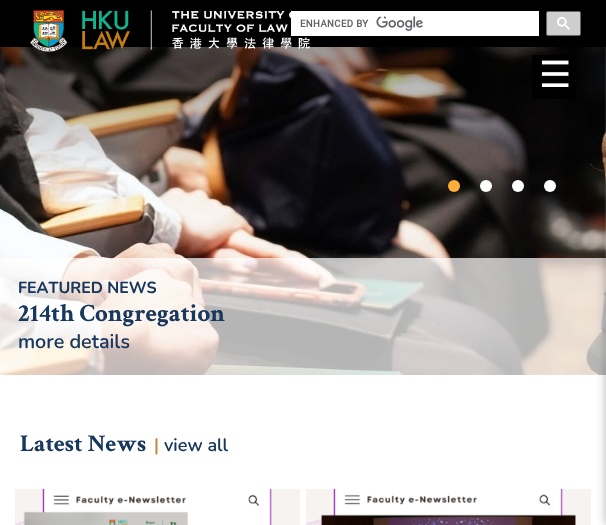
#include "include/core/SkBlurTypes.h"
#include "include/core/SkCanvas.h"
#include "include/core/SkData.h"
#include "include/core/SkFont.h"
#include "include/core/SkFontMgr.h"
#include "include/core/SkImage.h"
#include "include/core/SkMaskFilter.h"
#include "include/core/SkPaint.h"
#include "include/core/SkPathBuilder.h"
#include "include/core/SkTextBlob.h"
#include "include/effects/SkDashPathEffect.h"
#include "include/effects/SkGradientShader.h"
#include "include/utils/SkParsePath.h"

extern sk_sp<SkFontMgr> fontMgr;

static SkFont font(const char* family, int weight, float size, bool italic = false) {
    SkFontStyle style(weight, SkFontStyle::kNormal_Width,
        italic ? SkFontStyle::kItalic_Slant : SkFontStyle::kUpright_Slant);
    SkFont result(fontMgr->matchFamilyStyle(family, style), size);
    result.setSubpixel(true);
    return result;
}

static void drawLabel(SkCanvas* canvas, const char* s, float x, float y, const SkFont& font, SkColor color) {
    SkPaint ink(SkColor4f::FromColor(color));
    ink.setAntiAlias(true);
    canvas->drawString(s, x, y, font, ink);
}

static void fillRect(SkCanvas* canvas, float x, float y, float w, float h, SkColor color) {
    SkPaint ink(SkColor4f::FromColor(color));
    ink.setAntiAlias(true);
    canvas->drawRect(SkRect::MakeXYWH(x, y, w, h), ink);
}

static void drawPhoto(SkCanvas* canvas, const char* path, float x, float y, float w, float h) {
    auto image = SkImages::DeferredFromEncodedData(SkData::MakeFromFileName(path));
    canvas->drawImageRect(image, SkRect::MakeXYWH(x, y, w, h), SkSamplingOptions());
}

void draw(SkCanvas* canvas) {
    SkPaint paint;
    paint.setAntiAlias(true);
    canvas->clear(0xFFFFFFFF);
    drawPhoto(canvas, "assets/img4.png", 0, 47, 606, 328);
    {
        const SkColor colors[] = {0x80000000, 0x00000000};
        const float stops[] = {0, 1};
        const SkPoint ends[] = {{303, 0}, {303, 180}};
        paint.setShader(SkGradientShader::MakeLinear(ends, colors, stops, 2, SkTileMode::kClamp));
        paint.setAlpha(255);
    }
    canvas->drawRect(SkRect::MakeXYWH(0, 47, 606, 125), paint);
    fillRect(canvas, 0, 0, 606, 47, 0xFF000000);
    fillRect(canvas, 291, 11, 248, 25, 0xFFFFFFFF);
    drawPhoto(canvas, "assets/img1.png", 300, 16, 123, 15);
    paint.setShader(nullptr);
    paint.setColor(0xFFCECECE);
    canvas->drawRoundRect(SkRect::MakeXYWH(546.5f, 11.5f, 34, 24), 1.5f, 1.5f, paint);
    paint.setStroke(true);
    paint.setStrokeWidth(1);
    paint.setColor(0xFF666666);
    canvas->drawRoundRect(SkRect::MakeXYWH(546.5f, 11.5f, 34, 24), 1.5f, 1.5f, paint);
    drawPhoto(canvas, "assets/img2.png", 557, 17, 13, 13);
    drawPhoto(canvas, "assets/img3.png", 30, 10, 357, 42);
    fillRect(canvas, 532, 55, 44, 44, 0xFF000000);
    SkFont font1 = font("DejaVu Sans", 400, 36);
    drawLabel(canvas, "☰", 539, 87, font1, 0xFFFFFFFF);
    fillRect(canvas, 0, 258, 606, 117, 0xB3FFFFFF);
    drawPhoto(canvas, "assets/img6.png", 306, 489, 285, 36);
    paint.setStroke(false);
    paint.setColor(0x4D000000);
    paint.setMaskFilter(SkMaskFilter::MakeBlur(kNormal_SkBlurStyle, 5));
    canvas->drawRect(SkRect::MakeXYWH(606, 0, 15, 525), paint);
    paint.setMaskFilter(nullptr);
    paint.setColor(0xFFFCAF39);
    canvas->drawCircle(454, 186, 6, paint);
    paint.setColor(0xFFFFFFFF);
    canvas->drawCircle(486, 186, 6, paint);
    canvas->drawCircle(518, 186, 6, paint);
    canvas->drawCircle(550, 186, 6, paint);
    SkFont font2 = font("Nunito", 700, 16);
    drawLabel(canvas, "FEATURED NEWS", 18, 293, font2, 0xFF18385D);
    SkFont font3 = font("Crimson Text", 700, 25);
    drawLabel(canvas, "214th Congregation", 18, 321, font3, 0xFF18385D);
    SkFont font4 = font("Nunito", 600, 19.75f);
    drawLabel(canvas, "more details", 18, 348, font4, 0xFF18385D);
    SkFont font5 = font("Crimson Text", 700, 24);
    drawLabel(canvas, "Latest News", 20, 451, font5, 0xFF18385D);
    SkFont font6 = font("Nunito", 600, 18);
    drawLabel(canvas, "|", 154, 451, font6, 0xFFCA7F3B);
    drawLabel(canvas, "view all", 164, 451, font6, 0xFF18385D);
    drawPhoto(canvas, "assets/img5.png", 15, 489, 285, 36);
}
